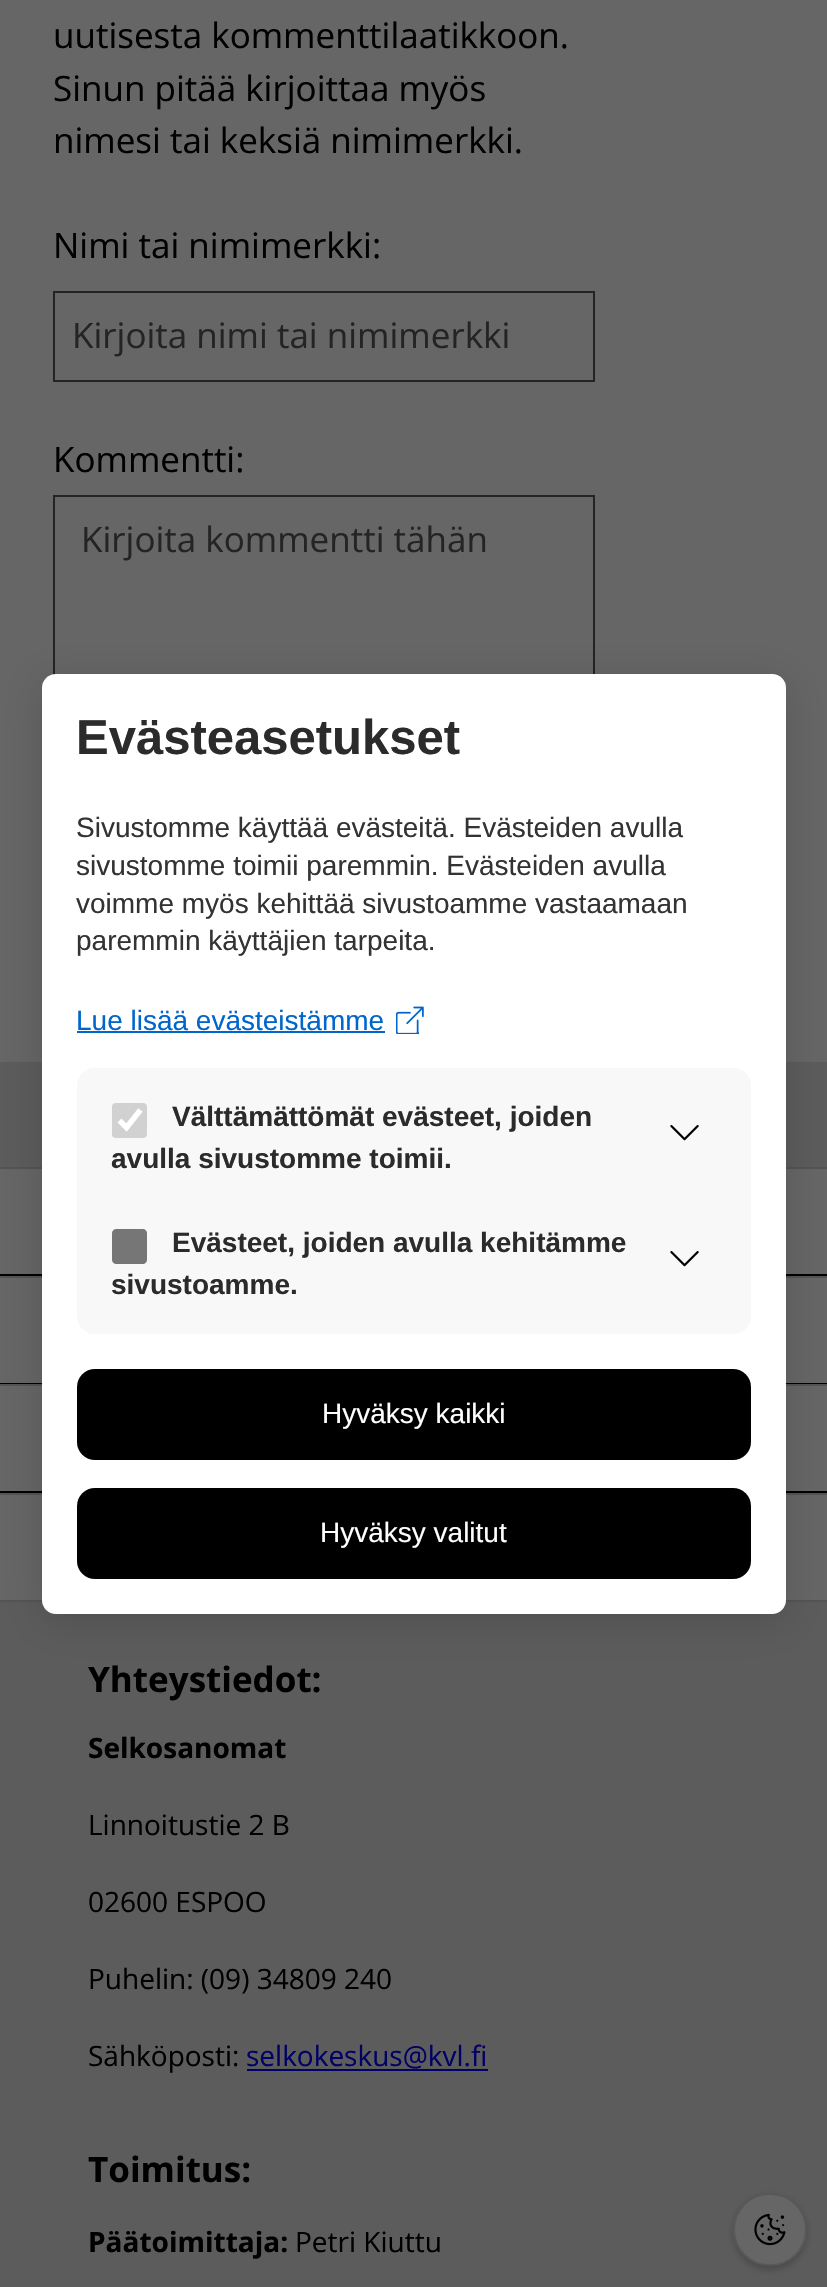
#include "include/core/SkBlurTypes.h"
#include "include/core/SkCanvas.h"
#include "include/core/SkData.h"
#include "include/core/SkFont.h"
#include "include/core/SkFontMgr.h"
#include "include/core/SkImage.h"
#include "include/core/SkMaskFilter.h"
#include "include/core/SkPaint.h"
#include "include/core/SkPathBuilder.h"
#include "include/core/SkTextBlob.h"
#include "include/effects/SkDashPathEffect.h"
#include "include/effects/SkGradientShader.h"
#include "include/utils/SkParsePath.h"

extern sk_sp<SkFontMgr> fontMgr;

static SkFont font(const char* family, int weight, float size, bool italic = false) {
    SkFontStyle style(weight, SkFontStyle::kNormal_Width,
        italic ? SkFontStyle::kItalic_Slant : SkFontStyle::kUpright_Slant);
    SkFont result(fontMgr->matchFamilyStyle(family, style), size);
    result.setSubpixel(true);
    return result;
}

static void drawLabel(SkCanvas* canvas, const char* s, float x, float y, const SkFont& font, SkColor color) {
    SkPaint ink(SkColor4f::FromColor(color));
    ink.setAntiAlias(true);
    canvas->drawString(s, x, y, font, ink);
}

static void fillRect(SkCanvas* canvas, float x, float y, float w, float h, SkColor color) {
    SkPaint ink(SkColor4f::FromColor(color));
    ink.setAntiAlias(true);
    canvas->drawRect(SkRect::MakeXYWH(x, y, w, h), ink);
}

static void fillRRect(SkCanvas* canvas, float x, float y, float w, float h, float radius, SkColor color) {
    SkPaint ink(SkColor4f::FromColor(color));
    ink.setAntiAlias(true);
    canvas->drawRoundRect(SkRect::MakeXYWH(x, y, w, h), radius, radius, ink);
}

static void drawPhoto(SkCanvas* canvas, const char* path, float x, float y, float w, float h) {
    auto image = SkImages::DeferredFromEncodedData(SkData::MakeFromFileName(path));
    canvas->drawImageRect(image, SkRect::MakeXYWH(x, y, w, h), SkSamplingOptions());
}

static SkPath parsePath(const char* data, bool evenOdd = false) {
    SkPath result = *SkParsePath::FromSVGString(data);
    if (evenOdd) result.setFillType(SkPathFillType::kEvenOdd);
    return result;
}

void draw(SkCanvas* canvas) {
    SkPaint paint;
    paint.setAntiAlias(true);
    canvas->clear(0xFF5C5C5C);
    fillRect(canvas, 0, 0, 827, 1062, 0xFF666666);
    SkFont font1 = font("Open Sans", 400, 35);
    drawLabel(canvas, "uutisesta kommenttilaatikkoon.", 53, 48, font1, 0xFF000000);
    drawLabel(canvas, "Sinun pitää kirjoittaa myös", 53, 101, font1, 0xFF000000);
    drawLabel(canvas, "nimesi tai keksiä nimimerkki.", 53, 153, font1, 0xFF000000);
    drawLabel(canvas, "Nimi tai nimimerkki:", 53, 258, font1, 0xFF000000);
    paint.setStroke(true);
    paint.setStrokeWidth(2);
    paint.setColor(0xFF242424);
    canvas->drawRect(SkRect::MakeXYWH(54, 292, 540, 89), paint);
    drawLabel(canvas, "Kirjoita nimi tai nimimerkki", 72, 348, font1, 0xFF242424);
    drawLabel(canvas, "Kommentti:", 53, 472, font1, 0xFF000000);
    canvas->drawRect(SkRect::MakeXYWH(54, 496, 540, 261), paint);
    drawLabel(canvas, "Kirjoita kommentti tähän", 81, 552, font1, 0xFF242424);
    fillRect(canvas, 0, 1169, 827, 431, 0xFF666666);
    fillRect(canvas, 0, 1167, 827, 2, 0xFF545454);
    fillRect(canvas, 0, 1274, 827, 2, 0xFF000000);
    fillRect(canvas, 0, 1276, 827, 2, 0xFF545454);
    fillRect(canvas, 0, 1383, 827, 1, 0xFF000000);
    fillRect(canvas, 0, 1384, 827, 2, 0xFF545454);
    fillRect(canvas, 0, 1491, 827, 2, 0xFF000000);
    fillRect(canvas, 0, 1493, 827, 2, 0xFF545454);
    fillRect(canvas, 0, 1600, 827, 2, 0xFF545454);
    paint.setStroke(false);
    paint.setColor(0x26000000);
    paint.setMaskFilter(SkMaskFilter::MakeBlur(kNormal_SkBlurStyle, 21));
    canvas->drawRoundRect(SkRect::MakeXYWH(42, 681, 744, 940), 14, 14, paint);
    paint.setMaskFilter(nullptr);
    fillRRect(canvas, 42, 674, 744, 940, 14, 0xFFFFFFFF);
    SkFont font2 = font("Liberation Sans", 700, 49);
    drawLabel(canvas, "Evästeasetukset", 76, 754, font2, 0xFF2B2B2B);
    SkFont font3 = font("Liberation Sans", 400, 28);
    drawLabel(canvas, "Sivustomme käyttää evästeitä. Evästeiden avulla", 76, 837, font3, 0xFF333333);
    drawLabel(canvas, "sivustomme toimii paremmin. Evästeiden avulla", 76, 875, font3, 0xFF333333);
    drawLabel(canvas, "voimme myös kehittää sivustoamme vastaamaan", 76, 913, font3, 0xFF333333);
    drawLabel(canvas, "paremmin käyttäjien tarpeita.", 76, 950, font3, 0xFF333333);
    drawLabel(canvas, "Lue lisää evästeistämme", 76, 1030, font3, 0xFF0066CC);
    fillRect(canvas, 77, 1031, 308, 2, 0xFF0066CC);
    drawPhoto(canvas, "assets/img1.png", 396, 1006, 28, 28);
    fillRRect(canvas, 77, 1068, 674, 266, 18, 0xFFF8F8F8);
    fillRRect(canvas, 112, 1103, 35, 35, 4, 0xFFD1D1D1);
    paint.setStroke(true);
    paint.setStrokeWidth(5.6f);
    paint.setColor(0xFFFFFFFF);
    canvas->drawPath(parsePath("M119.5 1120.5L126.5 1127.5L140.5 1110"), paint);
    SkFont font4 = font("Liberation Sans", 700, 28);
    drawLabel(canvas, "Välttämättömät evästeet, joiden", 172, 1126, font4, 0xFF2B2B2B);
    drawLabel(canvas, "avulla sivustomme toimii.", 111, 1168, font4, 0xFF2B2B2B);
    drawPhoto(canvas, "assets/img2.png", 670, 1125, 29, 16);
    paint.setStroke(false);
    paint.setColor(0xFF767676);
    canvas->drawPath(parsePath("M116 1229H143C145 1229 147 1231 147 1233V1260C147 1262 145 1264 143 1264H116C114 1264 112 1262 112 1260V1233C112 1231 114 1229 116 1229Z"), paint);
    drawLabel(canvas, "Evästeet, joiden avulla kehitämme", 172, 1252, font4, 0xFF2B2B2B);
    drawLabel(canvas, "sivustoamme.", 111, 1294, font4, 0xFF2B2B2B);
    drawPhoto(canvas, "assets/img2.png", 670, 1251, 29, 16);
    fillRRect(canvas, 77, 1369, 674, 91, 18, 0xFF000000);
    drawLabel(canvas, "Hyväksy kaikki", 322, 1423, font3, 0xFFFFFFFF);
    fillRRect(canvas, 77, 1488, 674, 91, 18, 0xFF000000);
    drawLabel(canvas, "Hyväksy valitut", 320, 1542, font3, 0xFFFFFFFF);
    SkFont font5 = font("Open Sans", 700, 35);
    drawLabel(canvas, "Yhteystiedot:", 88, 1692, font5, 0xFF000000);
    SkFont font6 = font("Open Sans", 700, 28);
    drawLabel(canvas, "Selkosanomat", 88, 1758, font6, 0xFF000000);
    SkFont font7 = font("Open Sans", 400, 28);
    drawLabel(canvas, "Linnoitustie 2 B", 88, 1835, font7, 0xFF000000);
    drawLabel(canvas, "02600 ESPOO", 88, 1912, font7, 0xFF000000);
    drawLabel(canvas, "Puhelin: (09) 34809 240", 88, 1989, font7, 0xFF000000);
    drawLabel(canvas, "Sähköposti:", 88, 2066, font7, 0xFF000000);
    drawLabel(canvas, "selkokeskus@kvl.fi", 246, 2066, font7, 0xFF000066);
    fillRect(canvas, 247, 2069, 241, 2, 0xFF000066);
    drawLabel(canvas, "Toimitus:", 88, 2182, font5, 0xFF000000);
    drawLabel(canvas, "Päätoimittaja:", 88, 2252, font6, 0xFF000000);
    drawLabel(canvas, "Petri Kiuttu", 295, 2252, font7, 0xFF000000);
    paint.setColor(0x33000000);
    paint.setMaskFilter(SkMaskFilter::MakeBlur(kNormal_SkBlurStyle, 3.5f));
    canvas->drawRoundRect(SkRect::MakeXYWH(733, 2196, 74, 74), 37, 37, paint);
    paint.setMaskFilter(nullptr);
    paint.setColor(0xFF666666);
    canvas->drawRoundRect(SkRect::MakeXYWH(734, 2194, 72, 71), 35.5f, 35.5f, paint);
    paint.setStroke(true);
    paint.setStrokeWidth(2);
    paint.setColor(0xFF585858);
    canvas->drawRoundRect(SkRect::MakeXYWH(734, 2194, 72, 71), 35.5f, 35.5f, paint);
    drawPhoto(canvas, "assets/img3.png", 754, 2213, 32, 33);
}
